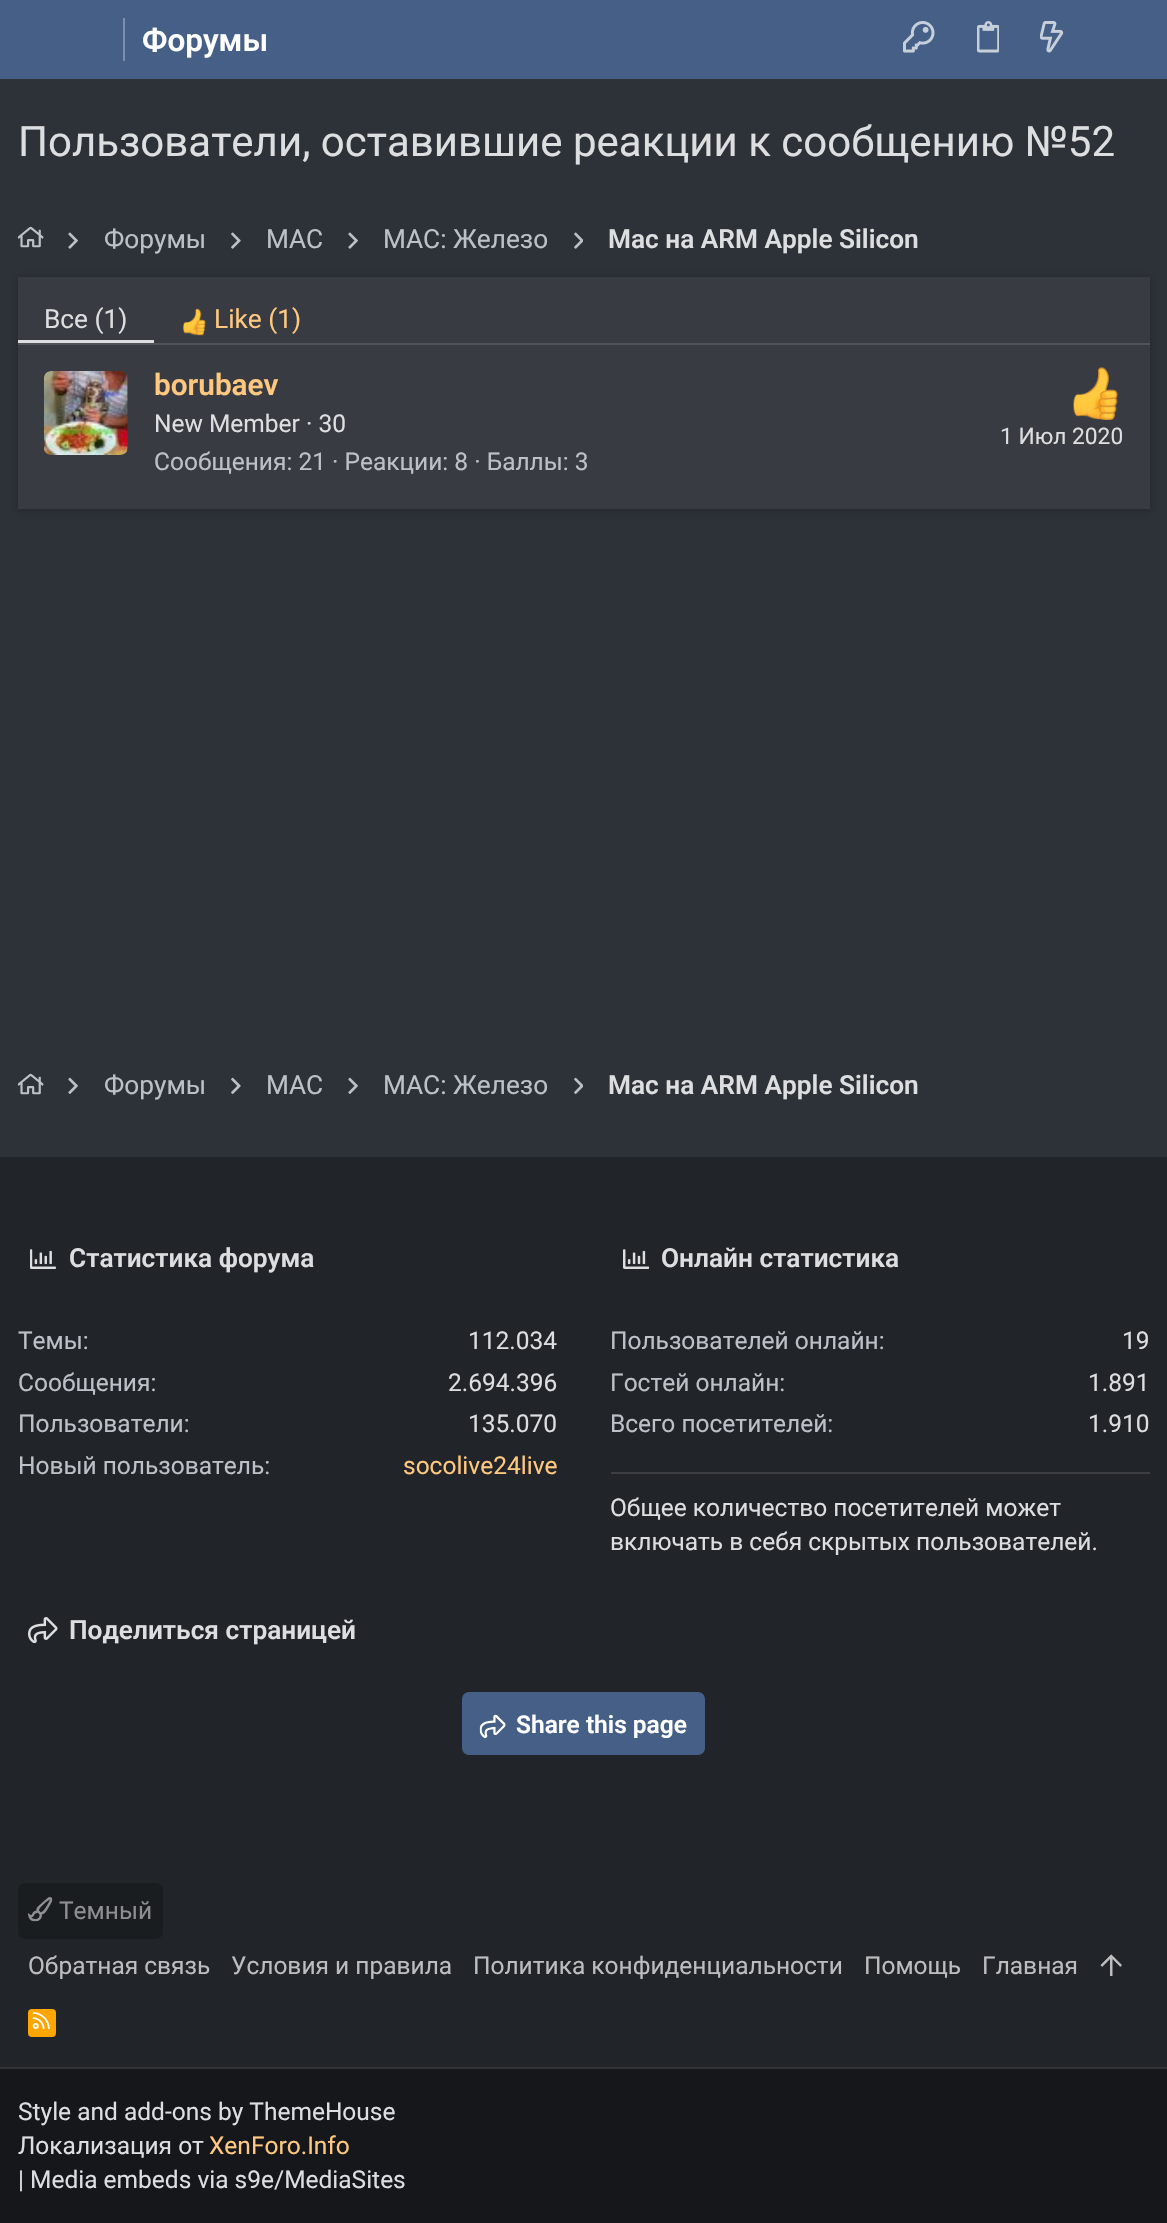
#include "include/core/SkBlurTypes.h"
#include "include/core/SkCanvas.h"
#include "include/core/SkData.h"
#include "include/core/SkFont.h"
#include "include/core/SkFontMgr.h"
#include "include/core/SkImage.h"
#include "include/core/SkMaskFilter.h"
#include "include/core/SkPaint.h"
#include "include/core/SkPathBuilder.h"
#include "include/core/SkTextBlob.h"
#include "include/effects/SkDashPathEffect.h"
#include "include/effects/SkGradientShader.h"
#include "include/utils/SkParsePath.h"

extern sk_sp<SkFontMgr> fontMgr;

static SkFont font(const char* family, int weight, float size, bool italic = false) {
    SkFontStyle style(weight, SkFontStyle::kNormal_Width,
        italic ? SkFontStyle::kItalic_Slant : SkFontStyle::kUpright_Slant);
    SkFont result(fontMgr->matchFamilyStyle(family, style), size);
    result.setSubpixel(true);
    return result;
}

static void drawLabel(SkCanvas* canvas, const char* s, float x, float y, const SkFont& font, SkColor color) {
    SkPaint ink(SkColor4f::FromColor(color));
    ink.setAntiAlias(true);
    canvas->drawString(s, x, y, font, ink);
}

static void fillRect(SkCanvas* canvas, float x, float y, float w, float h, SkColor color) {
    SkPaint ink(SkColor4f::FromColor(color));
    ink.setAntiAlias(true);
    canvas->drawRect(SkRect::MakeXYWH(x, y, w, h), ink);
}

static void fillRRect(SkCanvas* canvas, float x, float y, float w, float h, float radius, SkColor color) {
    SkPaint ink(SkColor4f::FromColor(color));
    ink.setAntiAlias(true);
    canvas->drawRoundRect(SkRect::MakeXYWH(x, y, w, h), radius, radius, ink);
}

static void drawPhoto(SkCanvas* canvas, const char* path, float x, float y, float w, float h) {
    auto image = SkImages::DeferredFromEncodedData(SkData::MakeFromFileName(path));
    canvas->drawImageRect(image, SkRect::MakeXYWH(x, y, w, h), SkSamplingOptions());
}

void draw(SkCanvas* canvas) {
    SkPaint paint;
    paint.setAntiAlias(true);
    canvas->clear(0xFF2D3238);
    fillRect(canvas, 0, 0, 1167, 79, 0xFF455F87);
    fillRect(canvas, 123, 18, 2, 43, 0xFF7D8FAB);
    SkFont font1 = font("Roboto", 600, 31.5f);
    drawLabel(canvas, "Форумы", 142, 51, font1, 0xFFFFFFFF);
    drawPhoto(canvas, "assets/img1.png", 903, 21, 32, 32);
    drawPhoto(canvas, "assets/img2.png", 977, 21, 22, 32);
    drawPhoto(canvas, "assets/img3.png", 1040, 21, 24, 32);
    SkFont font2 = font("Roboto", 400, 42);
    drawLabel(canvas, "Пользователи, оставившие реакции к сообщению №52", 18, 156, font2, 0xFFDDDEDF);
    drawPhoto(canvas, "assets/img4.png", 17, 226, 27, 22);
    drawPhoto(canvas, "assets/img5.png", 68, 232, 10, 17);
    SkFont font3 = font("Roboto", 400, 26.25f);
    drawLabel(canvas, "Форумы", 104, 248, font3, 0xFFBCC0C7);
    drawPhoto(canvas, "assets/img6.png", 231, 232, 10, 17);
    drawLabel(canvas, "MAC", 266, 248, font3, 0xFFBCC0C7);
    drawPhoto(canvas, "assets/img5.png", 348, 232, 10, 17);
    drawLabel(canvas, "MAC: Железо", 383, 248, font3, 0xFFBCC0C7);
    drawPhoto(canvas, "assets/img7.png", 574, 232, 9, 17);
    SkFont font4 = font("Roboto", 600, 26.25f);
    drawLabel(canvas, "Mac на ARM Apple Silicon", 608, 248, font4, 0xFFDDDEDF);
    paint.setColor(0x33000000);
    paint.setMaskFilter(SkMaskFilter::MakeBlur(kNormal_SkBlurStyle, 4.5f));
    canvas->drawRect(SkRect::MakeXYWH(18, 278, 1132, 233), paint);
    paint.setMaskFilter(nullptr);
    fillRect(canvas, 18, 277, 1132, 232, 0xFF383C42);
    fillRect(canvas, 18, 343, 1132, 2, 0xFF505359);
    fillRect(canvas, 18, 340, 136, 3, 0xFFDDDEDF);
    drawLabel(canvas, "Все (1)", 44, 328, font3, 0xFFDDDEDF);
    drawPhoto(canvas, "assets/img8.png", 182, 308, 24, 28);
    drawLabel(canvas, "Like (1)", 214, 328, font3, 0xFFFFC880);
    drawPhoto(canvas, "assets/img9.png", 44, 371, 84, 84);
    SkFont font5 = font("Roboto", 600, 29.75f);
    drawLabel(canvas, "borubaev", 154, 395, font5, 0xFFFFC880);
    SkFont font6 = font("Roboto", 400, 24.5f);
    drawLabel(canvas, "New Member · 30", 154, 432, font6, 0xFFDDDEDF);
    drawPhoto(canvas, "assets/img10.png", 1073, 367, 45, 53);
    SkFont font7 = font("Roboto", 400, 22.75f);
    drawLabel(canvas, "1 Июл 2020", 1000, 444, font7, 0xFFDDDEDF);
    drawLabel(canvas, "Сообщения: 21 · Реакции: 8 · Баллы: 3", 154, 470, font6, 0xFFBCC0C7);
    drawPhoto(canvas, "assets/img4.png", 17, 1073, 27, 22);
    drawPhoto(canvas, "assets/img11.png", 68, 1077, 10, 17);
    drawLabel(canvas, "Форумы", 104, 1094, font3, 0xFFBCC0C7);
    drawPhoto(canvas, "assets/img12.png", 231, 1077, 10, 17);
    drawLabel(canvas, "MAC", 266, 1094, font3, 0xFFBCC0C7);
    drawPhoto(canvas, "assets/img11.png", 348, 1077, 10, 17);
    drawLabel(canvas, "MAC: Железо", 383, 1094, font3, 0xFFBCC0C7);
    drawPhoto(canvas, "assets/img13.png", 574, 1077, 9, 17);
    drawLabel(canvas, "Mac на ARM Apple Silicon", 608, 1094, font4, 0xFFDDDEDF);
    fillRect(canvas, 0, 1157, 1167, 910, 0xFF212428);
    drawPhoto(canvas, "assets/img14.png", 30, 1249, 26, 20);
    drawLabel(canvas, "Статистика форума", 69, 1267, font4, 0xFFDDDEDF);
    drawLabel(canvas, "Темы:", 18, 1349, font6, 0xFFBCC0C7);
    drawLabel(canvas, "112.034", 468, 1349, font6, 0xFFDDDEDF);
    drawLabel(canvas, "Сообщения:", 18, 1391, font6, 0xFFBCC0C7);
    drawLabel(canvas, "2.694.396", 448, 1391, font6, 0xFFDDDEDF);
    drawLabel(canvas, "Пользователи:", 18, 1432, font6, 0xFFBCC0C7);
    drawLabel(canvas, "135.070", 468, 1432, font6, 0xFFDDDEDF);
    drawLabel(canvas, "Новый пользователь:", 18, 1474, font6, 0xFFBCC0C7);
    drawLabel(canvas, "socolive24live", 403, 1474, font6, 0xFFFFC880);
    drawPhoto(canvas, "assets/img15.png", 623, 1249, 26, 20);
    drawLabel(canvas, "Онлайн статистика", 661, 1267, font4, 0xFFDDDEDF);
    drawLabel(canvas, "Пользователей онлайн:", 610, 1349, font6, 0xFFBCC0C7);
    drawLabel(canvas, "19", 1122, 1349, font6, 0xFFDDDEDF);
    drawLabel(canvas, "Гостей онлайн:", 610, 1391, font6, 0xFFBCC0C7);
    drawLabel(canvas, "1.891", 1088, 1391, font6, 0xFFDDDEDF);
    drawLabel(canvas, "Всего посетителей:", 610, 1432, font6, 0xFFBCC0C7);
    drawLabel(canvas, "1.910", 1088, 1432, font6, 0xFFDDDEDF);
    fillRect(canvas, 611, 1472, 539, 2, 0xFF3C3E42);
    drawLabel(canvas, "Общее количество посетителей может", 610, 1516, font6, 0xFFDDDEDF);
    drawLabel(canvas, "включать в себя скрытых пользователей.", 610, 1550, font6, 0xFFDDDEDF);
    drawPhoto(canvas, "assets/img16.png", 28, 1617, 30, 26);
    drawLabel(canvas, "Поделиться страницей", 69, 1639, font4, 0xFFDDDEDF);
    fillRRect(canvas, 462, 1692, 243, 63, 7, 0xFF455F87);
    drawPhoto(canvas, "assets/img17.png", 479, 1714, 27, 24);
    SkFont font8 = font("Roboto", 600, 24.5f);
    drawLabel(canvas, "Share this page", 516, 1733, font8, 0xFFFFFFFF);
    fillRRect(canvas, 18, 1883, 145, 56, 7, 0xFF1A1D20);
    drawPhoto(canvas, "assets/img18.png", 28, 1897, 25, 25);
    drawLabel(canvas, "Темный", 59, 1919, font6, 0xFF8D8E90);
    drawLabel(canvas, "Обратная связь", 28, 1974, font6, 0xFFBCBDBF);
    drawLabel(canvas, "Условия и правила", 231, 1974, font6, 0xFFBCBDBF);
    drawLabel(canvas, "Политика конфиденциальности", 473, 1974, font6, 0xFFBCBDBF);
    drawLabel(canvas, "Помощь", 864, 1974, font6, 0xFFBCBDBF);
    drawLabel(canvas, "Главная", 982, 1974, font6, 0xFFBCBDBF);
    drawPhoto(canvas, "assets/img19.png", 1100, 1954, 22, 22);
    fillRRect(canvas, 28, 2009, 28, 28, 4, 0xFFFFA500);
    drawPhoto(canvas, "assets/img20.png", 32, 2012, 18, 17);
    fillRect(canvas, 0, 2069, 1167, 154, 0xFF15171A);
    fillRect(canvas, 0, 2067, 1167, 2, 0xFF313335);
    drawLabel(canvas, "Style and add-ons by ThemeHouse", 18, 2120, font6, 0xFFDDDEDF);
    drawLabel(canvas, "Локализация от", 18, 2154, font6, 0xFFDDDEDF);
    drawLabel(canvas, "XenForo.Info", 209, 2154, font6, 0xFFFFC880);
    drawLabel(canvas, "| Media embeds via s9e/MediaSites", 18, 2188, font6, 0xFFDDDEDF);
}
